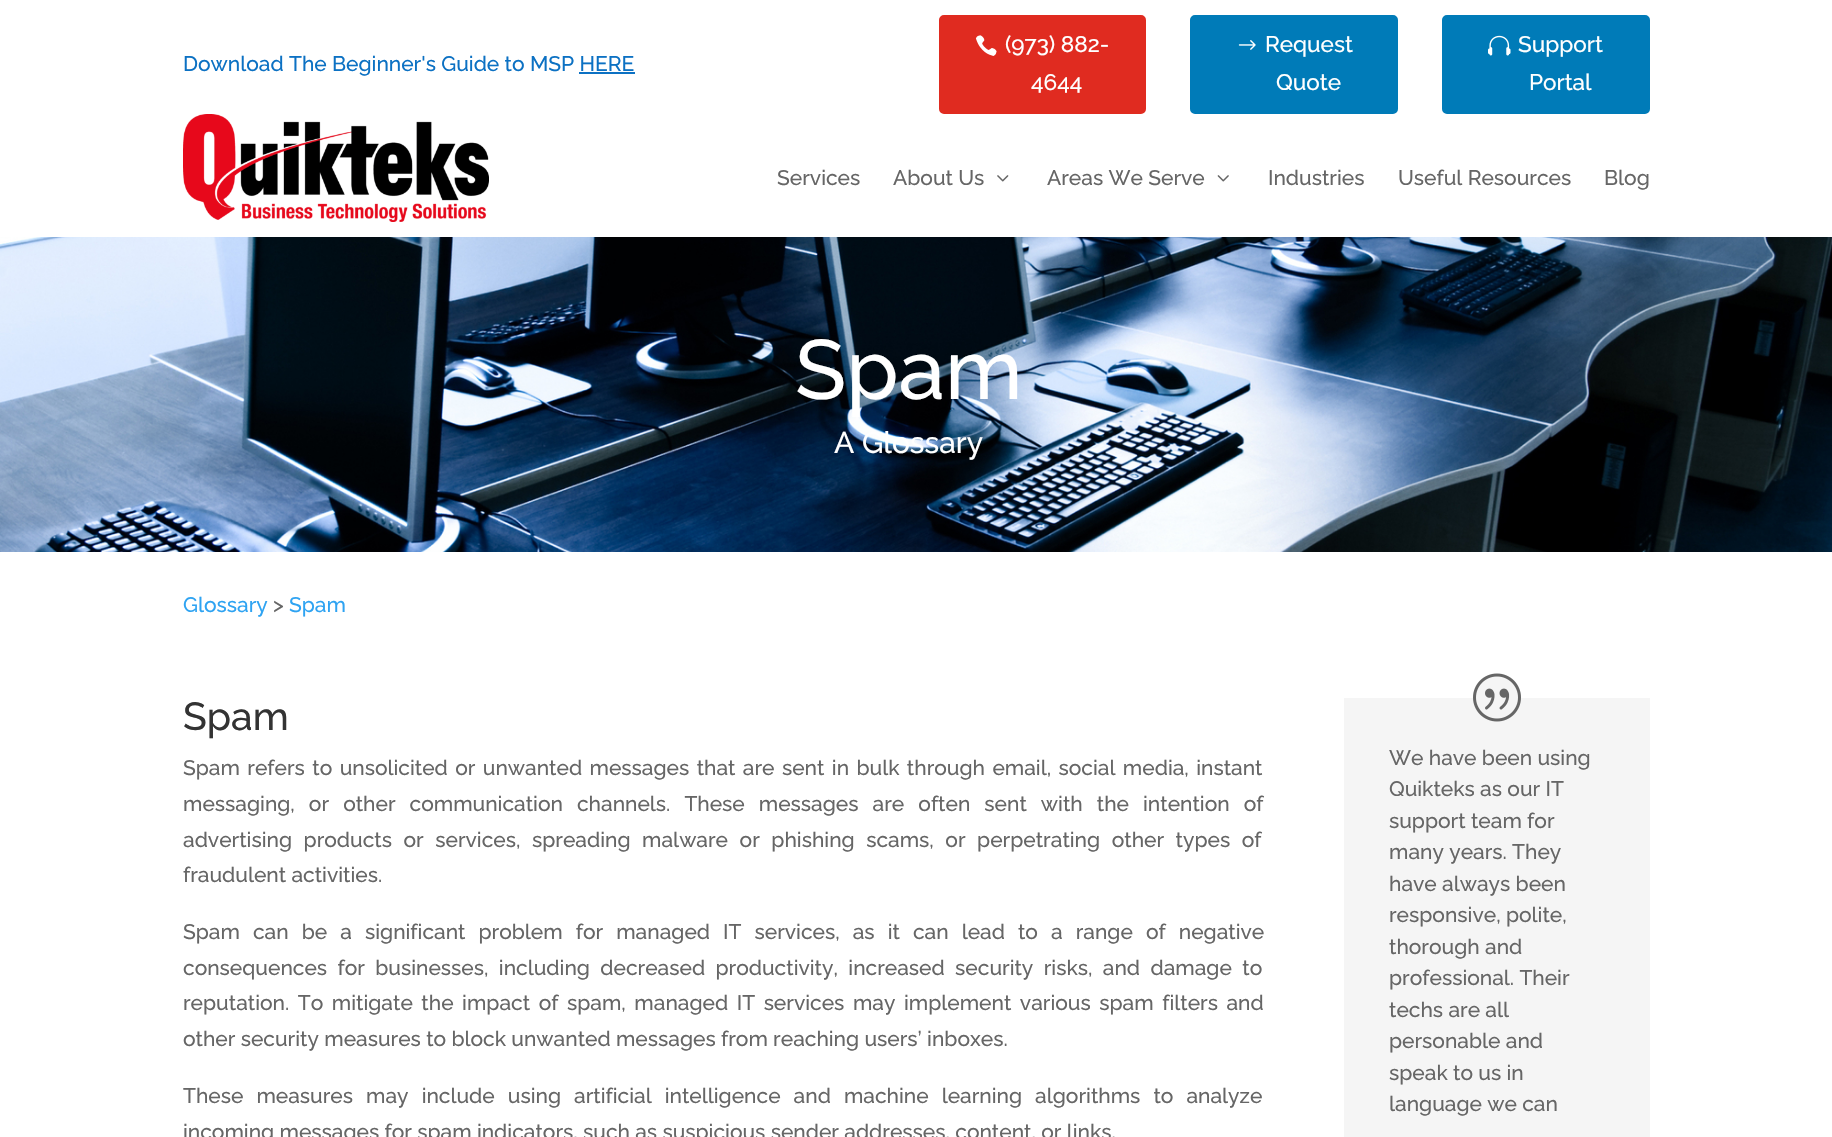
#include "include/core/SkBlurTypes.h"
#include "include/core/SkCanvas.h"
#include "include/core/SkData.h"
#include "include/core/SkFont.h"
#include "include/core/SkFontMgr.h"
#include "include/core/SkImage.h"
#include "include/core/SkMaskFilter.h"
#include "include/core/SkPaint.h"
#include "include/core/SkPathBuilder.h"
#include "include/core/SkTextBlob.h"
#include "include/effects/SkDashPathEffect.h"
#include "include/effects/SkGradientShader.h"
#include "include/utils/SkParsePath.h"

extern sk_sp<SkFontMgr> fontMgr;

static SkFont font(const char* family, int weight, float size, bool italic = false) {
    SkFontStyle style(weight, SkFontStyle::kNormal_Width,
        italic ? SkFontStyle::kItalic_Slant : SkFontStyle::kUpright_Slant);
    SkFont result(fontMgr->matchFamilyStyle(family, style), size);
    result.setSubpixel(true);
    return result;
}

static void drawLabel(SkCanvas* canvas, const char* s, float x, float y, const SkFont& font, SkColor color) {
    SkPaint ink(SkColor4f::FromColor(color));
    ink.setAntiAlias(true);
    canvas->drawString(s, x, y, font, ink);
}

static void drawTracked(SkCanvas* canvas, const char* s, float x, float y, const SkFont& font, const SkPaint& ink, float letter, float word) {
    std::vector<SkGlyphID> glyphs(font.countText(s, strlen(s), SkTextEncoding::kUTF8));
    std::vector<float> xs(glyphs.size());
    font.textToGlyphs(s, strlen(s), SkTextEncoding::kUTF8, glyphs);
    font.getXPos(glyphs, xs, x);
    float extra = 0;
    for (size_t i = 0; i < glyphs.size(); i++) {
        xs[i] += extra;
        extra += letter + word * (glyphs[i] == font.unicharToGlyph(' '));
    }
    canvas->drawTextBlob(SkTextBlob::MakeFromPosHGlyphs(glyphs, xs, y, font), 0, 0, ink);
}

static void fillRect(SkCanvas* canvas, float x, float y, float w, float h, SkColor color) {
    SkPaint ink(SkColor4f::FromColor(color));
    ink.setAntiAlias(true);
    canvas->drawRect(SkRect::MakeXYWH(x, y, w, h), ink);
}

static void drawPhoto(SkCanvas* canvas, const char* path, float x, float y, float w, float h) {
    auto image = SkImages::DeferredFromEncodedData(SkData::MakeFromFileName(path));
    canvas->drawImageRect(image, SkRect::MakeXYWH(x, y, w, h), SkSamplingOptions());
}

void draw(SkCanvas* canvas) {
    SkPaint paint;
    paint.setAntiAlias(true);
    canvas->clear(0xFFFFFFFF);
    SkFont font1 = font("Raleway", 100, 21);
    drawLabel(canvas, "Download The Beginner's Guide to MSP HERE", 183, 71, font1, 0xFF0C71C3);
    fillRect(canvas, 579, 72, 56, 2, 0xFF0C71C3);
    paint.setColor(0xFFE02B20);
    canvas->drawRoundRect(SkRect::MakeXYWH(941.5f, 17.5f, 202, 94), 2.5f, 2.5f, paint);
    paint.setStroke(true);
    paint.setStrokeWidth(5);
    canvas->drawRoundRect(SkRect::MakeXYWH(941.5f, 17.5f, 202, 94), 2.5f, 2.5f, paint);
    drawPhoto(canvas, "assets/img1.png", 975, 35, 22, 21);
    SkFont font2 = font("Raleway", 100, 22.5f);
    drawLabel(canvas, "(973) 882-", 1005, 52, font2, 0xFFFFFFFF);
    drawLabel(canvas, "4644", 1031, 90, font2, 0xFFFFFFFF);
    paint.setStroke(false);
    paint.setColor(0xFF007BB8);
    canvas->drawRoundRect(SkRect::MakeXYWH(1192.5f, 17.5f, 203, 94), 2.5f, 2.5f, paint);
    paint.setStroke(true);
    canvas->drawRoundRect(SkRect::MakeXYWH(1192.5f, 17.5f, 203, 94), 2.5f, 2.5f, paint);
    drawPhoto(canvas, "assets/img2.png", 1238, 40, 18, 10);
    drawLabel(canvas, "Request", 1265, 52, font2, 0xFFFFFFFF);
    drawLabel(canvas, "Quote", 1276, 90, font2, 0xFFFFFFFF);
    paint.setStroke(false);
    canvas->drawRoundRect(SkRect::MakeXYWH(1444.5f, 17.5f, 203, 94), 2.5f, 2.5f, paint);
    paint.setStroke(true);
    canvas->drawRoundRect(SkRect::MakeXYWH(1444.5f, 17.5f, 203, 94), 2.5f, 2.5f, paint);
    drawPhoto(canvas, "assets/img3.png", 1488, 35, 23, 21);
    drawLabel(canvas, "Support", 1518, 52, font2, 0xFFFFFFFF);
    drawLabel(canvas, "Portal", 1529, 90, font2, 0xFFFFFFFF);
    drawPhoto(canvas, "assets/img4.png", 183, 114, 306, 108);
    drawLabel(canvas, "Services", 777, 185, font1, 0xFF666666);
    drawLabel(canvas, "About Us", 893, 185, font1, 0xFF666666);
    drawPhoto(canvas, "assets/img5.png", 997, 175, 12, 7);
    drawLabel(canvas, "Areas We Serve", 1047, 185, font1, 0xFF666666);
    drawPhoto(canvas, "assets/img6.png", 1217, 175, 12, 7);
    drawLabel(canvas, "Industries", 1268, 185, font1, 0xFF666666);
    drawLabel(canvas, "Useful Resources", 1398, 185, font1, 0xFF666666);
    drawLabel(canvas, "Blog", 1604, 185, font1, 0xFF666666);
    drawPhoto(canvas, "assets/img7.png", 0, 237, 1832, 315);
    SkFont font3 = font("Raleway", 100, 84);
    drawLabel(canvas, "Spam", 795, 399, font3, 0xFFFFFFFF);
    SkFont font4 = font("Raleway", 100, 30);
    drawLabel(canvas, "A Glossary", 834, 453, font4, 0xFFFFFFFF);
    drawLabel(canvas, "Glossary", 183, 612, font1, 0xFF2EA3F2);
    drawLabel(canvas, ">", 273, 612, font1, 0xFF666666);
    drawLabel(canvas, "Spam", 289, 612, font1, 0xFF2EA3F2);
    SkFont font5 = font("Raleway", 100, 39);
    drawLabel(canvas, "Spam", 183, 730, font5, 0xFF333333);
    paint.setStroke(false);
    paint.setColor(0xFF666666);
    drawTracked(canvas, "Spam refers to unsolicited or unwanted messages that are sent in bulk through email, social media, instant", 183, 775, font1, paint, 0, 2.1f);
    drawTracked(canvas, "messaging, or other communication channels. These messages are often sent with the intention of", 183, 811, font1, paint, 0, 8.75f);
    drawTracked(canvas, "advertising products or services, spreading malware or phishing scams, or perpetrating other types of", 183, 847, font1, paint, 0, 6.25f);
    drawLabel(canvas, "fraudulent activities.", 183, 882, font1, 0xFF666666);
    drawTracked(canvas, "Spam can be a significant problem for managed IT services, as it can lead to a range of negative", 183, 939, font1, paint, 0, 7.75f);
    drawTracked(canvas, "consequences for businesses, including decreased productivity, increased security risks, and damage to", 183, 975, font1, paint, 0, 5.1f);
    drawTracked(canvas, "reputation. To mitigate the impact of spam, managed IT services may implement various spam filters and", 183, 1010, font1, paint, 0, 3.25f);
    drawLabel(canvas, "other security measures to block unwanted messages from reaching users’ inboxes.", 183, 1046, font1, 0xFF666666);
    drawTracked(canvas, "These measures may include using artificial intelligence and machine learning algorithms to analyze", 183, 1103, font1, paint, 0, 7.75f);
    drawLabel(canvas, "incoming messages for spam indicators, such as suspicious sender addresses, content, or links.", 183, 1139, font1, 0xFF666666);
    fillRect(canvas, 1344, 698, 306, 439, 0xFFF5F5F5);
    paint.setColor(0xFFF5F5F5);
    canvas->drawCircle(1497, 698, 24, paint);
    drawPhoto(canvas, "assets/img8.png", 1473, 673, 48, 49);
    drawLabel(canvas, "We have been using", 1389, 765, font1, 0xFF666666);
    drawLabel(canvas, "Quikteks as our IT", 1389, 796, font1, 0xFF666666);
    drawLabel(canvas, "support team for", 1389, 828, font1, 0xFF666666);
    drawLabel(canvas, "many years. They", 1389, 859, font1, 0xFF666666);
    drawLabel(canvas, "have always been", 1389, 891, font1, 0xFF666666);
    drawLabel(canvas, "responsive, polite,", 1389, 922, font1, 0xFF666666);
    drawLabel(canvas, "thorough and", 1389, 954, font1, 0xFF666666);
    drawLabel(canvas, "professional. Their", 1389, 985, font1, 0xFF666666);
    drawLabel(canvas, "techs are all", 1389, 1017, font1, 0xFF666666);
    drawLabel(canvas, "personable and", 1389, 1048, font1, 0xFF666666);
    drawLabel(canvas, "speak to us in", 1389, 1080, font1, 0xFF666666);
    drawLabel(canvas, "language we can", 1389, 1111, font1, 0xFF666666);
}
